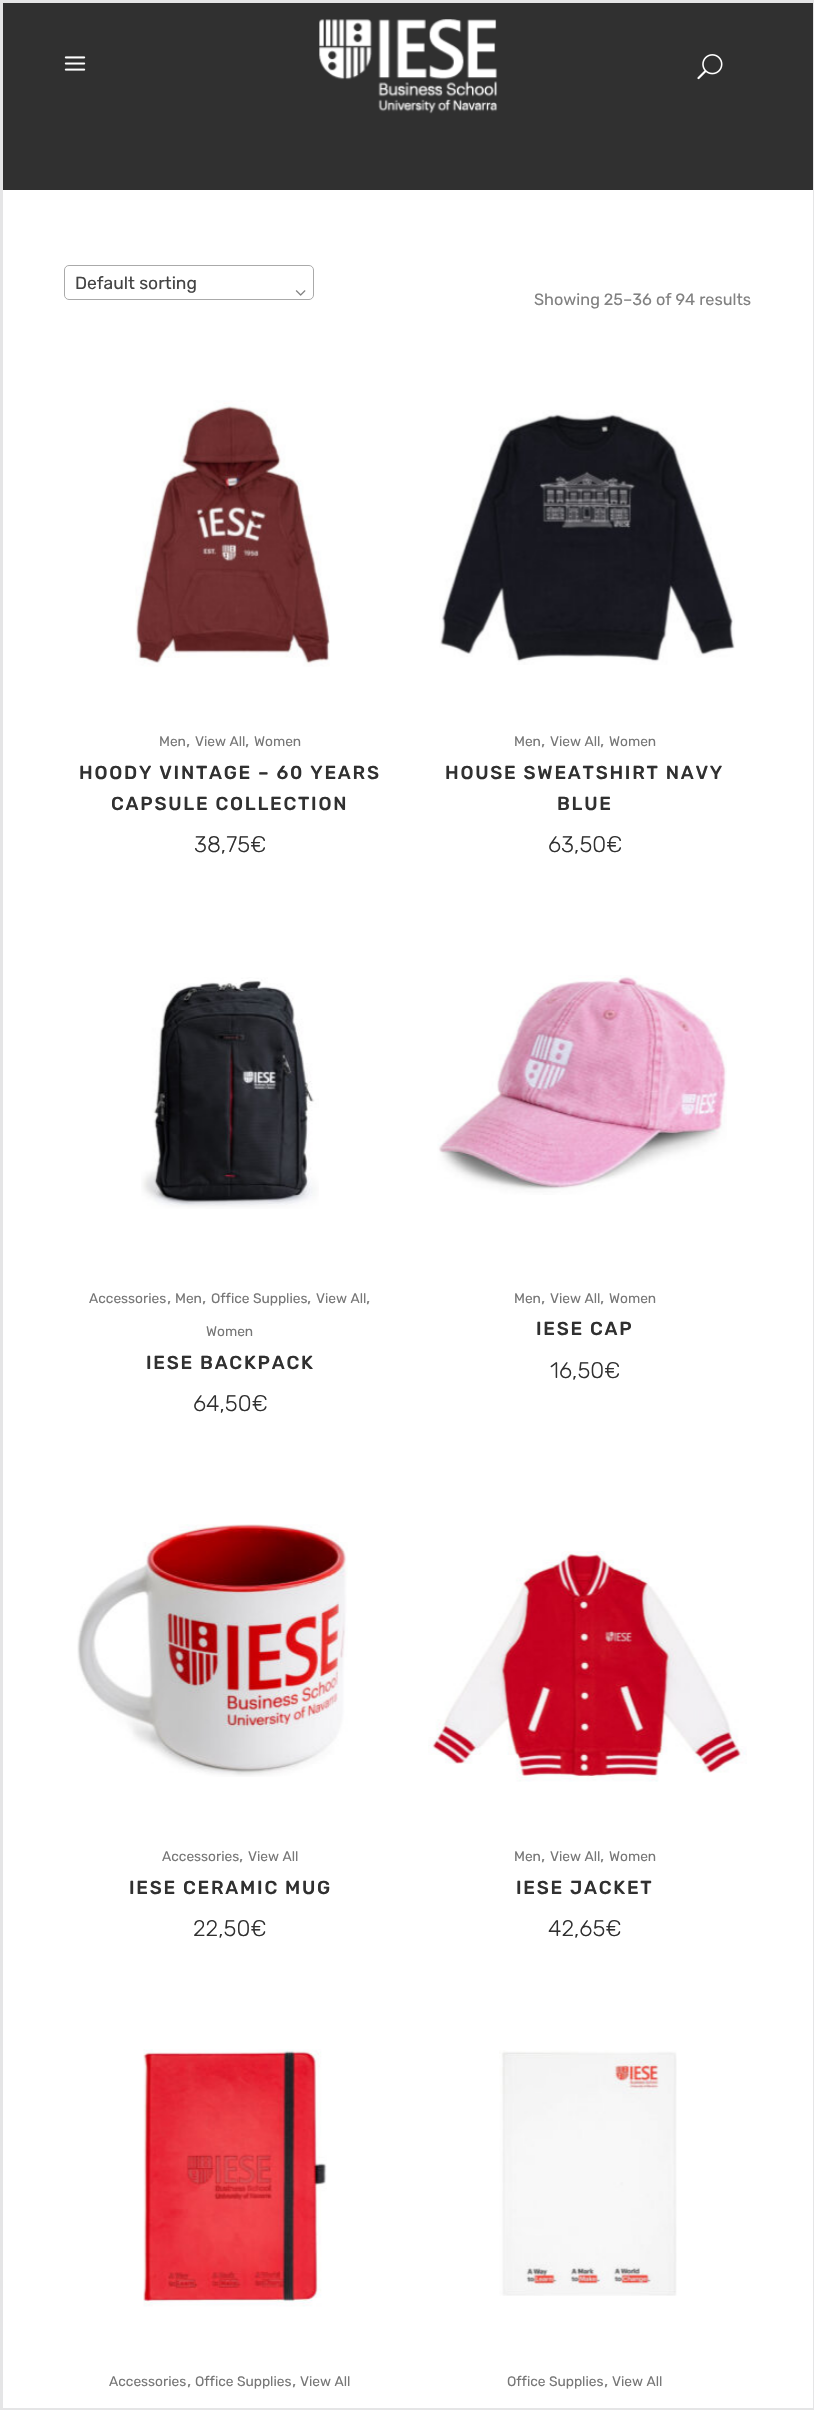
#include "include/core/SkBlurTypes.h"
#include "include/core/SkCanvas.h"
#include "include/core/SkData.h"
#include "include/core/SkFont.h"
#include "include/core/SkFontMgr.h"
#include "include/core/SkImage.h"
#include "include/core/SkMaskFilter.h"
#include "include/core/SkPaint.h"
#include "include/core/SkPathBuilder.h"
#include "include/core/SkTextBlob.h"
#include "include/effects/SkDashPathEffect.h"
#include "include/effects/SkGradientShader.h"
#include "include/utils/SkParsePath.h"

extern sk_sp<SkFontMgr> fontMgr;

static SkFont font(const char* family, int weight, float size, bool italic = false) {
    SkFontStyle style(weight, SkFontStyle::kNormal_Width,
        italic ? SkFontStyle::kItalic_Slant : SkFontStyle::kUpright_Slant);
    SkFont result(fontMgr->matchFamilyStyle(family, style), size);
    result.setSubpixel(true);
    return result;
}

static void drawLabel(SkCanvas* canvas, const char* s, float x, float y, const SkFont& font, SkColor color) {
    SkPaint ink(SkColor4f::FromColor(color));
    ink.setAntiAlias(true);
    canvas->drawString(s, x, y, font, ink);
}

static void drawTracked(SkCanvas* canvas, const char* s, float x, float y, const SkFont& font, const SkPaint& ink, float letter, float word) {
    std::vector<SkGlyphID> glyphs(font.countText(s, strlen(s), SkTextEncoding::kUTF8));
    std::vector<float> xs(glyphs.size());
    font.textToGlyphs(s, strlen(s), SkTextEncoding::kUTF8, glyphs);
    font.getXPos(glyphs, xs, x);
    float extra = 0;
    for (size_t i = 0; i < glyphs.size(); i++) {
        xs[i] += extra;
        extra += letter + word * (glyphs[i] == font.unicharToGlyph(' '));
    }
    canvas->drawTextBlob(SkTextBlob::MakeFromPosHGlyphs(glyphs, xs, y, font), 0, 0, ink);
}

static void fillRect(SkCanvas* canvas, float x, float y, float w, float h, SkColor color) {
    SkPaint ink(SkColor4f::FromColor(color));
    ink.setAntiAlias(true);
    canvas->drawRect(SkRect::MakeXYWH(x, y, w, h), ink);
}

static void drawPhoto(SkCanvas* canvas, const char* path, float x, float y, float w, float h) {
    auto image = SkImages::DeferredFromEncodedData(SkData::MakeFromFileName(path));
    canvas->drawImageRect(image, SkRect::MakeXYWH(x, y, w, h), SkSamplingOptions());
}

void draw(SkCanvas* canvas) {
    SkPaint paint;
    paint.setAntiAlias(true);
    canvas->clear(0xFFFFFFFF);
    fillRect(canvas, 3, 3, 810, 187, 0xFF303030);
    drawPhoto(canvas, "assets/img1.png", 64, 56, 22, 15);
    drawPhoto(canvas, "assets/img2.png", 319, 19, 179, 95);
    drawPhoto(canvas, "assets/img3.png", 697, 54, 26, 26);
    fillRect(canvas, 0, 0, 3, 2410, 0xFFE5E5E6);
    fillRect(canvas, 813, 0, 1, 2410, 0xFFE5E5E6);
    fillRect(canvas, 0, 0, 814, 3, 0xFFE5E5E6);
    paint.setStroke(true);
    paint.setStrokeWidth(1);
    paint.setColor(0xFFAAAAAA);
    canvas->drawRoundRect(SkRect::MakeXYWH(64.5f, 265.5f, 249, 34), 4.5f, 4.5f, paint);
    SkFont font1 = font("Rubik", 400, 17.5f);
    drawLabel(canvas, "Default sorting", 75, 289, font1, 0xFF444444);
    drawPhoto(canvas, "assets/img4.png", 295, 290, 11, 6);
    SkFont font2 = font("Rubik", 400, 16.25f);
    drawLabel(canvas, "Showing 25–36 of 94 results", 534, 305, font2, 0xFF818181);
    drawPhoto(canvas, "assets/img5.png", 135, 400, 195, 267);
    SkFont font3 = font("Rubik", 400, 13.75f);
    drawLabel(canvas, "Men", 159, 746, font3, 0xFF777777);
    drawLabel(canvas, ",", 186, 746, font1, 0xFF818181);
    drawLabel(canvas, "View All", 195, 746, font3, 0xFF777777);
    drawLabel(canvas, ",", 245, 746, font1, 0xFF818181);
    drawLabel(canvas, "Women", 254, 746, font3, 0xFF777777);
    SkFont font4 = font("Rubik", 500, 18.75f);
    paint.setStroke(false);
    paint.setColor(0xFF303030);
    drawTracked(canvas, "HOODY VINTAGE – 60 YEARS", 79, 779, font4, paint, 1.75f, 0);
    drawTracked(canvas, "CAPSULE COLLECTION", 111, 810, font4, paint, 1.75f, 0);
    SkFont font5 = font("Rubik", 300, 22.5f);
    drawLabel(canvas, "38,75€", 194, 852, font5, 0xFF303030);
    drawPhoto(canvas, "assets/img6.png", 439, 410, 296, 255);
    drawLabel(canvas, "Men", 514, 746, font3, 0xFF777777);
    drawLabel(canvas, ",", 541, 746, font1, 0xFF818181);
    drawLabel(canvas, "View All", 550, 746, font3, 0xFF777777);
    drawLabel(canvas, ",", 600, 746, font1, 0xFF818181);
    drawLabel(canvas, "Women", 609, 746, font3, 0xFF777777);
    drawTracked(canvas, "HOUSE SWEATSHIRT NAVY", 445, 779, font4, paint, 1.75f, 0);
    drawTracked(canvas, "BLUE", 557, 810, font4, paint, 1.75f, 0);
    drawLabel(canvas, "63,50€", 548, 852, font5, 0xFF303030);
    drawPhoto(canvas, "assets/img7.png", 141, 977, 178, 232);
    drawLabel(canvas, "Accessories", 89, 1303, font3, 0xFF777777);
    drawLabel(canvas, ",", 167, 1303, font1, 0xFF818181);
    drawLabel(canvas, "Men", 175, 1303, font3, 0xFF777777);
    drawLabel(canvas, ",", 202, 1303, font1, 0xFF818181);
    drawLabel(canvas, "Office Supplies", 211, 1303, font3, 0xFF777777);
    drawLabel(canvas, ",", 307, 1303, font1, 0xFF818181);
    drawLabel(canvas, "View All", 316, 1303, font3, 0xFF777777);
    drawLabel(canvas, ",", 366, 1303, font1, 0xFF818181);
    drawLabel(canvas, "Women", 206, 1336, font3, 0xFF777777);
    drawTracked(canvas, "IESE BACKPACK", 146, 1369, font4, paint, 1.75f, 0);
    drawLabel(canvas, "64,50€", 193, 1411, font5, 0xFF303030);
    drawPhoto(canvas, "assets/img8.png", 437, 975, 290, 220);
    drawLabel(canvas, "Men", 514, 1303, font3, 0xFF777777);
    drawLabel(canvas, ",", 541, 1303, font1, 0xFF818181);
    drawLabel(canvas, "View All", 550, 1303, font3, 0xFF777777);
    drawLabel(canvas, ",", 600, 1303, font1, 0xFF818181);
    drawLabel(canvas, "Women", 609, 1303, font3, 0xFF777777);
    drawTracked(canvas, "IESE CAP", 536, 1335, font4, paint, 1.75f, 0);
    drawLabel(canvas, "16,50€", 550, 1378, font5, 0xFF303030);
    drawPhoto(canvas, "assets/img9.png", 77, 1524, 271, 253);
    drawLabel(canvas, "Accessories", 162, 1861, font3, 0xFF777777);
    drawLabel(canvas, ",", 239, 1861, font1, 0xFF818181);
    drawLabel(canvas, "View All", 248, 1861, font3, 0xFF777777);
    drawTracked(canvas, "IESE CERAMIC MUG", 129, 1894, font4, paint, 1.75f, 0);
    drawLabel(canvas, "22,50€", 193, 1936, font5, 0xFF303030);
    drawPhoto(canvas, "assets/img10.png", 428, 1551, 319, 231);
    drawLabel(canvas, "Men", 514, 1861, font3, 0xFF777777);
    drawLabel(canvas, ",", 541, 1861, font1, 0xFF818181);
    drawLabel(canvas, "View All", 550, 1861, font3, 0xFF777777);
    drawLabel(canvas, ",", 600, 1861, font1, 0xFF818181);
    drawLabel(canvas, "Women", 609, 1861, font3, 0xFF777777);
    drawTracked(canvas, "IESE JACKET", 516, 1894, font4, paint, 1.75f, 0);
    drawLabel(canvas, "42,65€", 548, 1936, font5, 0xFF303030);
    drawPhoto(canvas, "assets/img11.png", 143, 2049, 184, 258);
    drawLabel(canvas, "Accessories", 109, 2386, font3, 0xFF777777);
    drawLabel(canvas, ",", 187, 2386, font1, 0xFF818181);
    drawLabel(canvas, "Office Supplies", 195, 2386, font3, 0xFF777777);
    drawLabel(canvas, ",", 292, 2386, font1, 0xFF818181);
    drawLabel(canvas, "View All", 300, 2386, font3, 0xFF777777);
    drawPhoto(canvas, "assets/img12.png", 499, 2050, 178, 246);
    drawLabel(canvas, "Office Supplies", 507, 2386, font3, 0xFF777777);
    drawLabel(canvas, ",", 604, 2386, font1, 0xFF818181);
    drawLabel(canvas, "View All", 612, 2386, font3, 0xFF777777);
    fillRect(canvas, 0, 2408, 814, 2, 0xFFE5E5E6);
}
